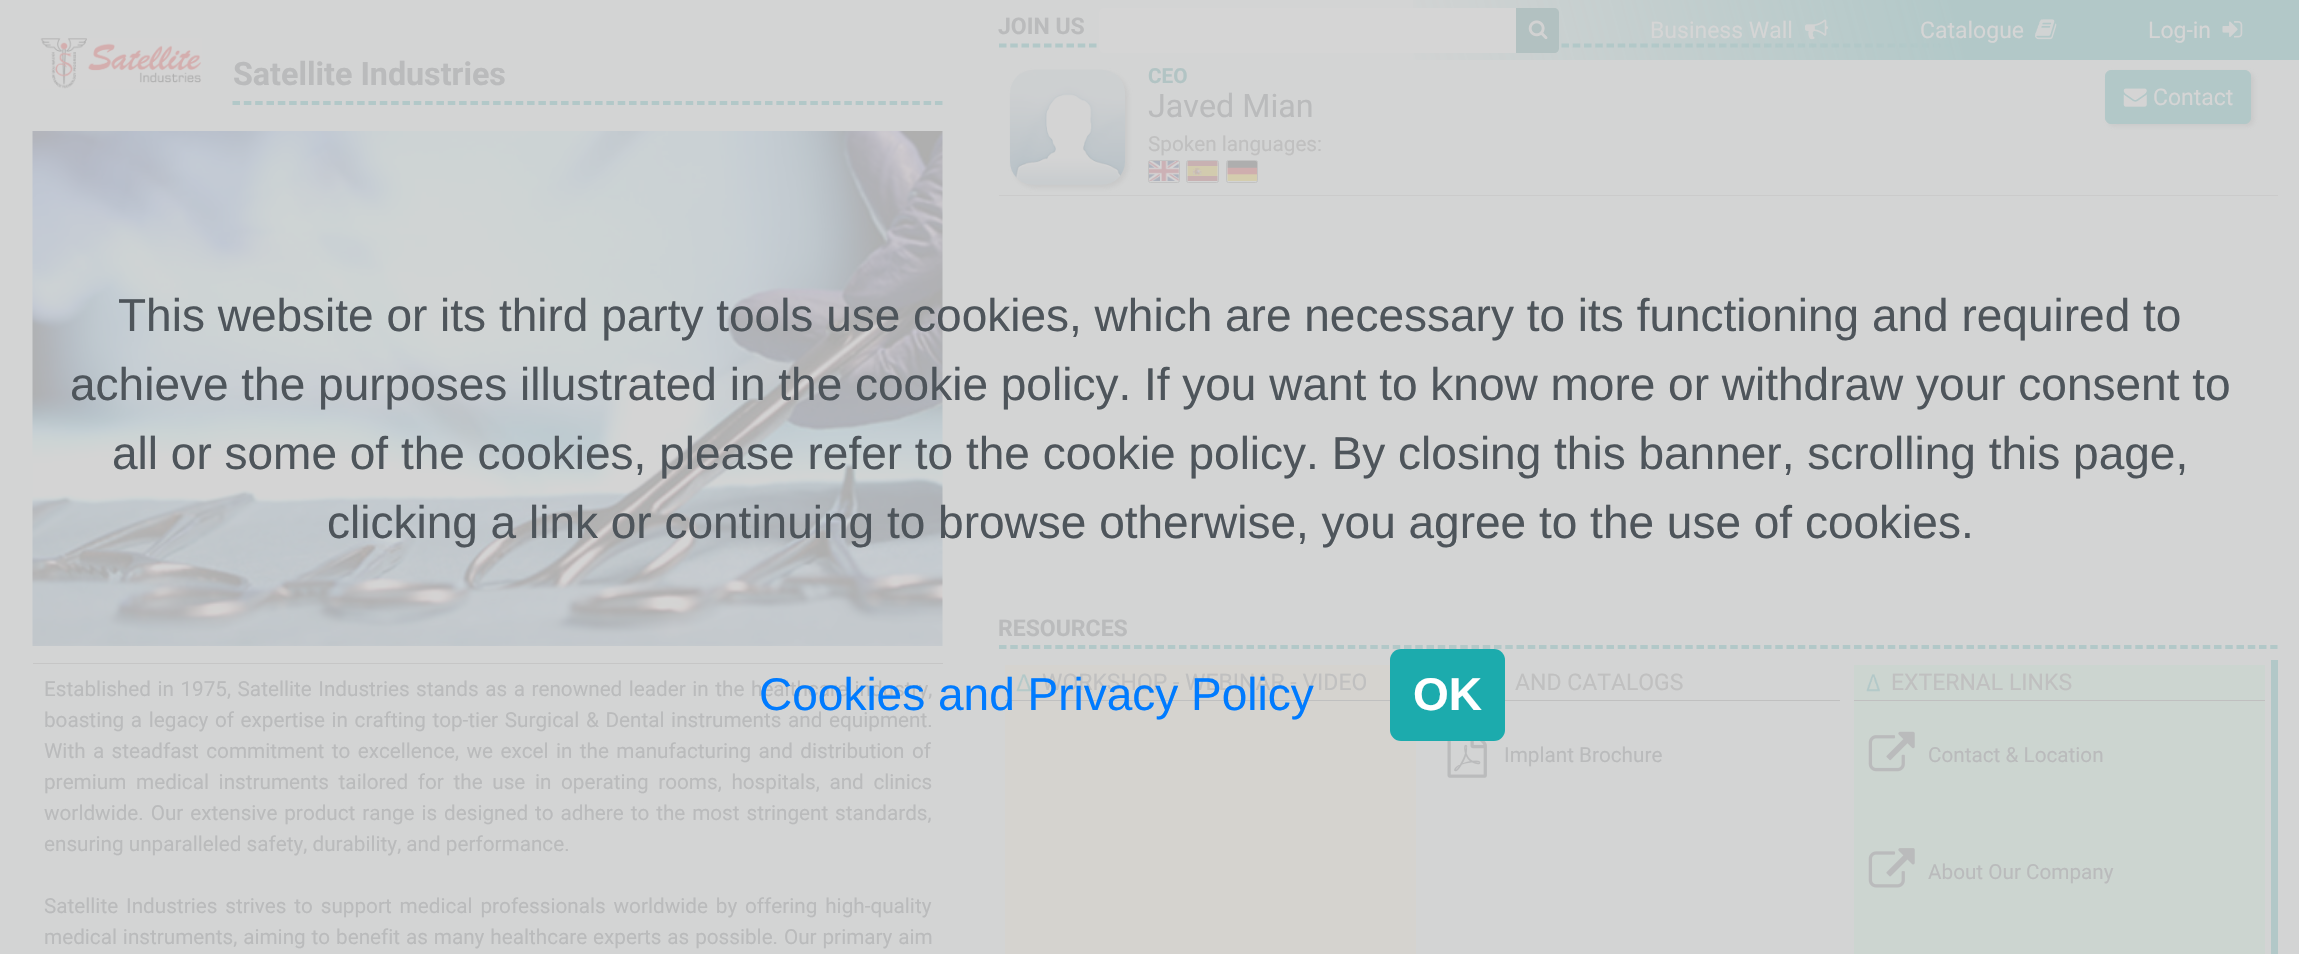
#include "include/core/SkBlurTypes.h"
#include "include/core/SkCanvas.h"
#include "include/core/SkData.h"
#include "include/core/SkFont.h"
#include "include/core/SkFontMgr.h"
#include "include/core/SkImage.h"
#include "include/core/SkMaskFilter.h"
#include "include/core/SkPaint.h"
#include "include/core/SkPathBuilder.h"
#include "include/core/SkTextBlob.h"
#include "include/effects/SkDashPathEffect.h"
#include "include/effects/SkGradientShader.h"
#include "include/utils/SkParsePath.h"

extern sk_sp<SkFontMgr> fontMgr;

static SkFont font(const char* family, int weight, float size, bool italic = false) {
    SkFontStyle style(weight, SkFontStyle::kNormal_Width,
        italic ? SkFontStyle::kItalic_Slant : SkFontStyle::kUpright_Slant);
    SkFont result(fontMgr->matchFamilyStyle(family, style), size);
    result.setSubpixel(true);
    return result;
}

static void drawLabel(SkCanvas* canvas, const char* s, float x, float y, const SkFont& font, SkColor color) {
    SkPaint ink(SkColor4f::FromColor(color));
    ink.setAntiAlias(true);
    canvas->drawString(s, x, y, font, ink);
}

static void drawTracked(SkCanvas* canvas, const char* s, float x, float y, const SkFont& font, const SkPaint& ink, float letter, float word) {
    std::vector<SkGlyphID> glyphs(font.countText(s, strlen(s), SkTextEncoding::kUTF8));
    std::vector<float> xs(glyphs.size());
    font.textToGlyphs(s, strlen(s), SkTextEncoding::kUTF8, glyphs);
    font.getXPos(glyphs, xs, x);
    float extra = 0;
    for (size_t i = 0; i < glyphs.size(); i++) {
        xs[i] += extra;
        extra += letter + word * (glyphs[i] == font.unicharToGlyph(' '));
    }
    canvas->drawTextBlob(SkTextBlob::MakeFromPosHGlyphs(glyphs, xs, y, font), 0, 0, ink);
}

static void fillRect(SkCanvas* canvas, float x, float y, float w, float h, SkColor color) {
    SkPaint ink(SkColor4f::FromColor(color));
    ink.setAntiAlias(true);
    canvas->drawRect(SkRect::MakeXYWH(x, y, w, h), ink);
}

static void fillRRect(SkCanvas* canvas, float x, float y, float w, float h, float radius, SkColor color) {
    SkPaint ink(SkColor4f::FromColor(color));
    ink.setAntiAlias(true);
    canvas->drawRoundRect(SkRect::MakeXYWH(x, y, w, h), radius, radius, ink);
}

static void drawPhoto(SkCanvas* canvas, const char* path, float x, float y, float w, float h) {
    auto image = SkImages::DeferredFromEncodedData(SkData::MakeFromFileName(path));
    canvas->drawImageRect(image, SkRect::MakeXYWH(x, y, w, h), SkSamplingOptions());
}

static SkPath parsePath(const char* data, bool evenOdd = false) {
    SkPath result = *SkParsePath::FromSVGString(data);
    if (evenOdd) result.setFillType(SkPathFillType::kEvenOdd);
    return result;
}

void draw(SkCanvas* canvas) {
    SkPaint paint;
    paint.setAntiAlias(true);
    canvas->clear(0xFFD3D4D4);
    drawPhoto(canvas, "assets/img1.png", 40, 38, 162, 51);
    paint.setStroke(true);
    paint.setStrokeWidth(3.8f);
    paint.setColor(0xFFB2C8C8);
    paint.setPathEffect(SkDashPathEffect::Make({{7.5f, 3.83f}}, 0));
    canvas->drawPath(parsePath("M232.5 103H942.5"), paint);
    paint.setPathEffect(nullptr);
    SkFont font1 = font("Roboto", 700, 32.25f);
    drawLabel(canvas, "Satellite Industries", 233, 85, font1, 0xFFBABBBC);
    drawPhoto(canvas, "assets/img2.png", 32, 131, 911, 515);
    fillRect(canvas, 33, 663, 910, 1, 0xFFC6C6C6);
    SkFont font2 = font("Roboto", 400, 20.7f);
    paint.setStroke(false);
    paint.setColor(0xFFBABBBC);
    drawTracked(canvas, "Established in 1975, Satellite Industries stands as a renowned leader in the healthcare industry,", 44, 696, font2, paint, 0, 1.4f);
    drawTracked(canvas, "boasting a legacy of expertise in crafting top-tier Surgical & Dental instruments and equipment.", 44, 727, font2, paint, 0, 1.5f);
    drawTracked(canvas, "With a steadfast commitment to excellence, we excel in the manufacturing and distribution of", 44, 758, font2, paint, 0, 2.25f);
    drawTracked(canvas, "premium medical instruments tailored for the use in operating rooms, hospitals, and clinics", 44, 789, font2, paint, 0, 4.5f);
    drawTracked(canvas, "worldwide. Our extensive product range is designed to adhere to the most stringent standards,", 44, 820, font2, paint, 0, 1.75f);
    drawLabel(canvas, "ensuring unparalleled safety, durability, and performance.", 44, 851, font2, 0xFFBABBBC);
    drawTracked(canvas, "Satellite Industries strives to support medical professionals worldwide by offering high-quality", 44, 913, font2, paint, 0, 2.75f);
    drawTracked(canvas, "medical instruments, aiming to benefit as many healthcare experts as possible. Our primary aim", 44, 944, font2, paint, 0, 0.75f);
    paint.setStroke(true);
    paint.setColor(0xFFB2C8C8);
    paint.setPathEffect(SkDashPathEffect::Make({{7.5f, 3.75f}}, 0));
    canvas->drawPath(parsePath("M999 45.5H2277.5"), paint);
    paint.setPathEffect(nullptr);
    SkFont font3 = font("Roboto", 700, 23);
    drawLabel(canvas, "JOIN US", 998, 34, font3, 0xFFBABBBC);
    fillRect(canvas, 999, 195, 1279, 1, 0xFFCBCBCB);
    paint.setStroke(false);
    paint.setColor(0x4DAEAEAE);
    paint.setMaskFilter(SkMaskFilter::MakeBlur(kNormal_SkBlurStyle, 2.5f));
    canvas->drawRoundRect(SkRect::MakeXYWH(1013, 73, 115, 115), 23, 23, paint);
    paint.setMaskFilter(nullptr);
    drawPhoto(canvas, "assets/img3.png", 1010, 69, 115, 116);
    SkFont font4 = font("Roboto", 700, 20.7f);
    drawLabel(canvas, "CEO", 1148, 83, font4, 0xFFB2C4C4);
    SkFont font5 = font("Roboto", 400, 32.25f);
    drawLabel(canvas, "Javed Mian", 1148, 117, font5, 0xFFBABBBC);
    paint.setMaskFilter(SkMaskFilter::MakeBlur(kNormal_SkBlurStyle, 2.5f));
    canvas->drawRoundRect(SkRect::MakeXYWH(2108, 73, 146, 53), 6, 6, paint);
    paint.setMaskFilter(nullptr);
    paint.setColor(0xFFB2C8C8);
    canvas->drawRoundRect(SkRect::MakeXYWH(2105.5f, 70.5f, 145, 53), 5.5f, 5.5f, paint);
    paint.setStroke(true);
    paint.setStrokeWidth(1);
    canvas->drawRoundRect(SkRect::MakeXYWH(2105.5f, 70.5f, 145, 53), 5.5f, 5.5f, paint);
    drawPhoto(canvas, "assets/img4.png", 2123, 88, 24, 19);
    SkFont font6 = font("Roboto", 400, 23);
    drawLabel(canvas, "Contact", 2153, 105, font6, 0xFFD5D5D5);
    drawLabel(canvas, "Spoken languages:", 1148, 151, font2, 0xFFC0C0C0);
    drawPhoto(canvas, "assets/img5.png", 1148, 161, 31, 20);
    paint.setColor(0xFFC2C2C2);
    canvas->drawRoundRect(SkRect::MakeXYWH(1148.5f, 160.5f, 31, 22), 2, 2, paint);
    drawPhoto(canvas, "assets/img6.png", 1187, 161, 31, 20);
    canvas->drawRoundRect(SkRect::MakeXYWH(1186.5f, 160.5f, 32, 22), 2, 2, paint);
    drawPhoto(canvas, "assets/img7.png", 1227, 161, 31, 20);
    canvas->drawRoundRect(SkRect::MakeXYWH(1226.5f, 160.5f, 31, 22), 2, 2, paint);
    paint.setStrokeWidth(3.8f);
    paint.setColor(0xFFB2C8C8);
    paint.setPathEffect(SkDashPathEffect::Make({{7.5f, 3.75f}}, 0));
    canvas->drawPath(parsePath("M999 647H2277.5"), paint);
    paint.setPathEffect(nullptr);
    drawLabel(canvas, "RESOURCES", 998, 636, font3, 0xFFBABBBC);
    fillRect(canvas, 2271, 660, 7, 294, 0xFFB2C8C8);
    fillRect(canvas, 1005, 665, 411, 289, 0xFFD5D3CF);
    fillRect(canvas, 1005, 700, 385, 1, 0xFFC0C0C0);
    drawPhoto(canvas, "assets/img8.png", 1016, 674, 16, 18);
    drawLabel(canvas, "WORKSHOP - WEBINAR - VIDEO", 1042, 690, font6, 0xFFC0C0C0);
    fillRect(canvas, 1505, 700, 335, 1, 0xFFC0C0C0);
    drawLabel(canvas, "AND CATALOGS", 1515, 690, font6, 0xFFC0C0C0);
    drawPhoto(canvas, "assets/img9.png", 1447, 741, 40, 37);
    drawLabel(canvas, "Implant Brochure", 1504, 762, font2, 0xFFBABBBC);
    fillRect(canvas, 1854, 665, 411, 289, 0xFFCCD5D0);
    fillRect(canvas, 1854, 700, 411, 1, 0xFFC0C0C0);
    drawPhoto(canvas, "assets/img10.png", 1866, 674, 14, 18);
    drawLabel(canvas, "EXTERNAL LINKS", 1891, 690, font6, 0xFFC0C0C0);
    drawPhoto(canvas, "assets/img11.png", 1868, 731, 47, 41);
    drawLabel(canvas, "Contact & Location", 1928, 762, font2, 0xFFBABBBC);
    drawPhoto(canvas, "assets/img12.png", 1868, 848, 47, 40);
    drawLabel(canvas, "About Our Company", 1928, 879, font2, 0xFFBABBBC);
    paint.setStroke(false);
    {
        const SkColor colors[] = {0xFFB2C8C8, 0x00B2C8C8, 0x00B2C8C8, 0xFFB2C8C8, 0xFFB2C8C8};
        const float stops[] = {0, 0, 0.6f, 0.85f, 1};
        const SkPoint ends[] = {{70, 320}, {2230, -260}};
        paint.setShader(SkGradientShader::MakeLinear(ends, colors, stops, 5, SkTileMode::kClamp));
        paint.setAlpha(255);
    }
    canvas->drawRect(SkRect::MakeXYWH(1413, 0, 886, 60), paint);
    paint.setShader(nullptr);
    paint.setColor(0xFFD5D5D5);
    canvas->drawPath(parsePath("M1104 8H1518V53H1104C1101 53 1099 51 1099 48V13C1099 10 1101 8 1104 8Z"), paint);
    paint.setColor(0xFFB2C1C1);
    canvas->drawPath(parsePath("M1516 8H1554C1557 8 1559 10 1559 13V48C1559 51 1557 53 1554 53H1516Z"), paint);
    drawPhoto(canvas, "assets/img13.png", 1528, 20, 20, 20);
    drawLabel(canvas, "Business Wall", 1650, 38, font6, 0xFFD5D5D5);
    drawPhoto(canvas, "assets/img14.png", 1805, 19, 23, 21);
    drawLabel(canvas, "Catalogue", 1920, 38, font6, 0xFFD5D5D5);
    drawPhoto(canvas, "assets/img15.png", 2035, 19, 22, 21);
    drawLabel(canvas, "Log-in", 2148, 38, font6, 0xFFD5D5D5);
    drawPhoto(canvas, "assets/img16.png", 2222, 21, 21, 17);
    SkFont font7 = font("Liberation Sans", 400, 46);
    drawLabel(canvas, "This website or its third party tools use cookies, which are necessary to its functioning and required to", 118, 331, font7, 0xFF4E555B);
    drawLabel(canvas, "achieve the purposes illustrated in the cookie policy. If you want to know more or withdraw your consent to", 70, 400, font7, 0xFF4E555B);
    drawLabel(canvas, "all or some of the cookies, please refer to the cookie policy. By closing this banner, scrolling this page,", 112, 469, font7, 0xFF4E555B);
    drawLabel(canvas, "clicking a link or continuing to browse otherwise, you agree to the use of cookies.", 327, 538, font7, 0xFF4E555B);
    drawLabel(canvas, "Cookies and Privacy Policy", 759, 710, font7, 0xFF007BFF);
    fillRRect(canvas, 1390, 649, 115, 92, 11, 0xFF1CABAD);
    SkFont font8 = font("Liberation Sans", 700, 46);
    drawLabel(canvas, "OK", 1413, 710, font8, 0xFFFFFFFF);
}
